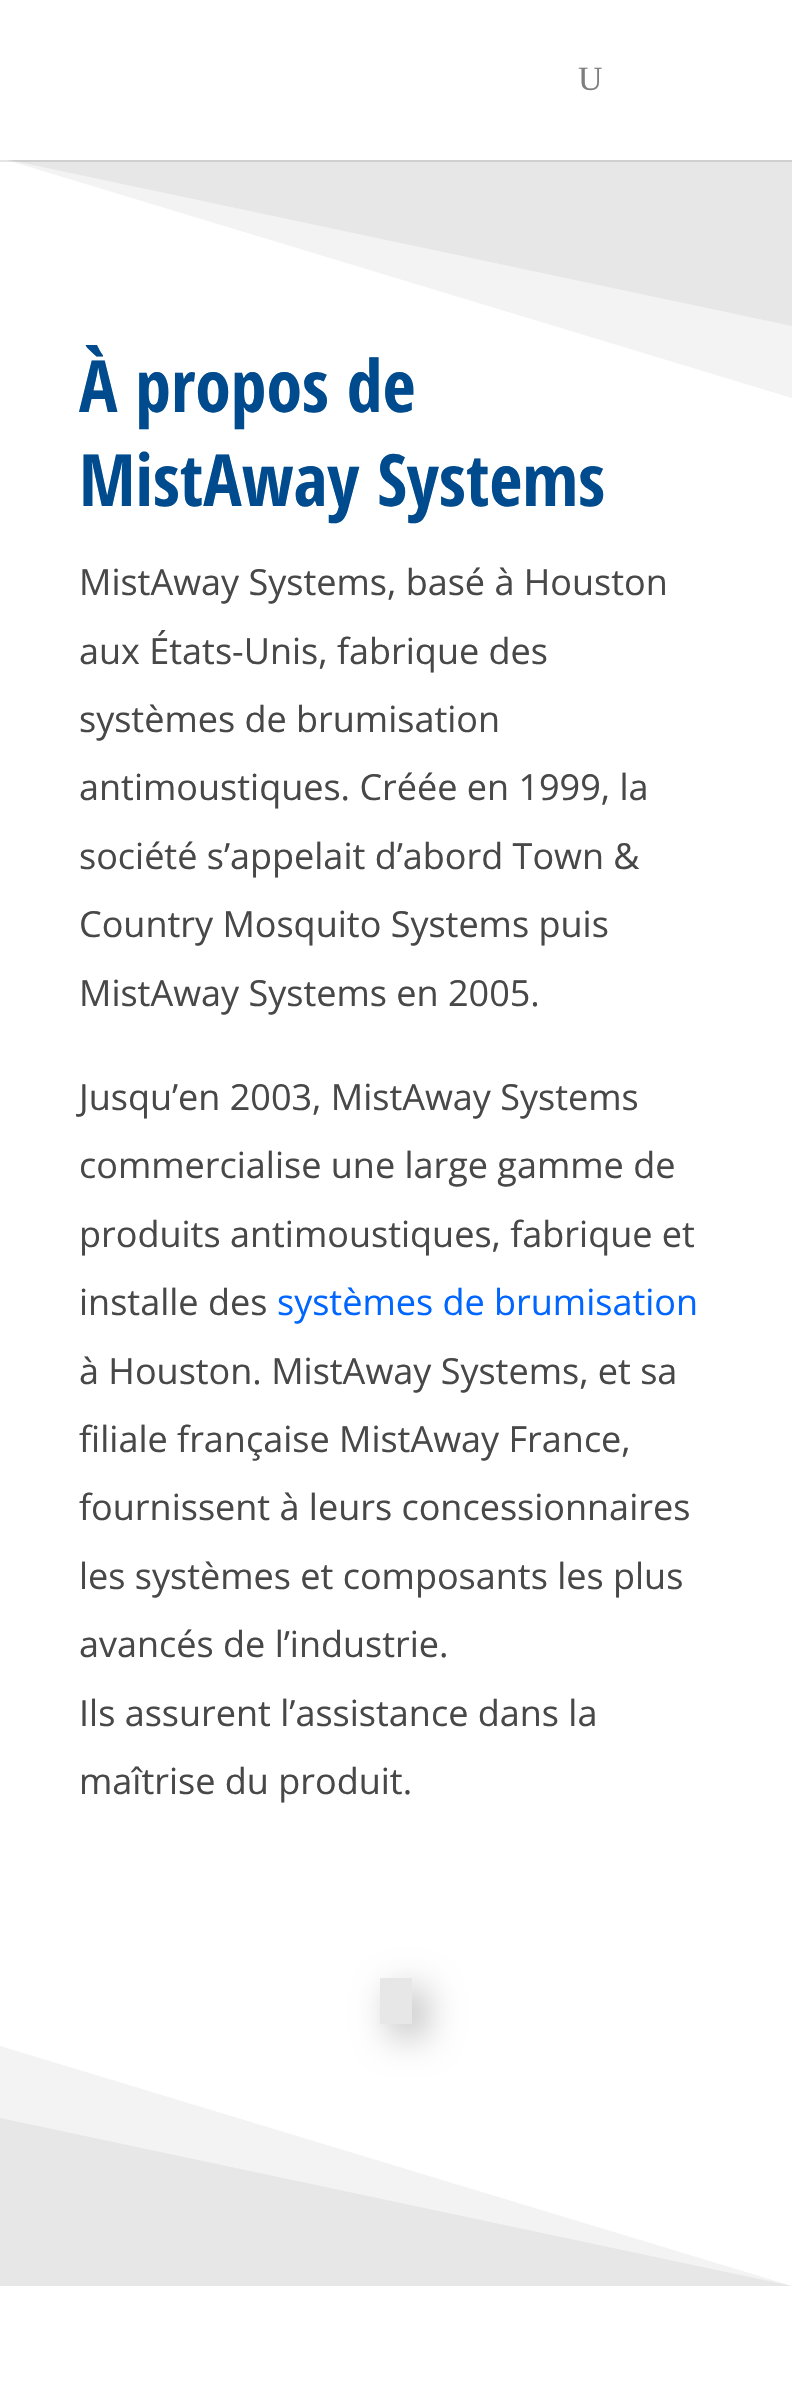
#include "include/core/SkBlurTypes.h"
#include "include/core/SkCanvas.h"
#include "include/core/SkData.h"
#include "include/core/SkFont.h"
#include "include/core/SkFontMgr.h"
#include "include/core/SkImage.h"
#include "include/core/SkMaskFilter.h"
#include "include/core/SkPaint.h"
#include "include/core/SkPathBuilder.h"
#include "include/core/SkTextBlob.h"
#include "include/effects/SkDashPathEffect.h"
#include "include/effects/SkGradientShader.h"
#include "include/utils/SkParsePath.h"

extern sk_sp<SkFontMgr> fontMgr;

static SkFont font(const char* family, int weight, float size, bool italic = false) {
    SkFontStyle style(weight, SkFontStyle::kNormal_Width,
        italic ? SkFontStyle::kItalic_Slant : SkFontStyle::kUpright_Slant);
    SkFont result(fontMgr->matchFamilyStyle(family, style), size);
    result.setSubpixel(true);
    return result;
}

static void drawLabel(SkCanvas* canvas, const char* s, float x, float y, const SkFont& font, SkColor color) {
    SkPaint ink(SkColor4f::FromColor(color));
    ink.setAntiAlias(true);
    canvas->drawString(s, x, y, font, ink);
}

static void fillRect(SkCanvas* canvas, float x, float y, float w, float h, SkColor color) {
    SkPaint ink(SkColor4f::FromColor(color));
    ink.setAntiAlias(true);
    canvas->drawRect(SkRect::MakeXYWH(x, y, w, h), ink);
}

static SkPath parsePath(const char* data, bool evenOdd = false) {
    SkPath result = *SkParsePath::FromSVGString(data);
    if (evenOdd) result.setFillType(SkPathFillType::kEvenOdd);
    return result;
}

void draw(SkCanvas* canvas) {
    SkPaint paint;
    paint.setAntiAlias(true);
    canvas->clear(0xFFFFFFFF);
    paint.setColor(0xFFF3F3F3);
    canvas->drawPath(parsePath("M792 398V158H0Z"), paint);
    paint.setColor(0xFFE7E7E7);
    canvas->drawPath(parsePath("M792 326V158H0Z"), paint);
    fillRect(canvas, 0, 160, 792, 2, 0x1A000000);
    fillRect(canvas, 0, 158, 792, 2, 0xFFFFFFFF);
    SkFont font1 = font("Liberation Serif", 400, 34);
    drawLabel(canvas, "U", 578, 90, font1, 0xFF7E7E7E);
    SkFont font2 = font("Open Sans Condensed", 700, 72);
    drawLabel(canvas, "À propos de", 79, 412, font2, 0xFF004B8D);
    drawLabel(canvas, "MistAway Systems", 79, 506, font2, 0xFF004B8D);
    SkFont font3 = font("Open Sans", 400, 36);
    drawLabel(canvas, "MistAway Systems, basé à Houston", 79, 595, font3, 0xFF484848);
    drawLabel(canvas, "aux États-Unis, fabrique des", 79, 664, font3, 0xFF484848);
    drawLabel(canvas, "systèmes de brumisation", 79, 732, font3, 0xFF484848);
    drawLabel(canvas, "antimoustiques. Créée en 1999, la", 79, 800, font3, 0xFF484848);
    drawLabel(canvas, "société s’appelait d’abord Town &", 79, 869, font3, 0xFF484848);
    drawLabel(canvas, "Country Mosquito Systems puis", 79, 937, font3, 0xFF484848);
    drawLabel(canvas, "MistAway Systems en 2005.", 79, 1006, font3, 0xFF484848);
    drawLabel(canvas, "Jusqu’en 2003, MistAway Systems", 79, 1110, font3, 0xFF484848);
    drawLabel(canvas, "commercialise une large gamme de", 79, 1178, font3, 0xFF484848);
    drawLabel(canvas, "produits antimoustiques, fabrique et", 79, 1247, font3, 0xFF484848);
    drawLabel(canvas, "installe des", 79, 1315, font3, 0xFF484848);
    drawLabel(canvas, "systèmes de brumisation", 277, 1315, font3, 0xFF0066FF);
    drawLabel(canvas, "à Houston. MistAway Systems, et sa", 79, 1384, font3, 0xFF484848);
    drawLabel(canvas, "filiale française MistAway France,", 79, 1452, font3, 0xFF484848);
    drawLabel(canvas, "fournissent à leurs concessionnaires", 79, 1520, font3, 0xFF484848);
    drawLabel(canvas, "les systèmes et composants les plus", 79, 1589, font3, 0xFF484848);
    drawLabel(canvas, "avancés de l’industrie.", 79, 1657, font3, 0xFF484848);
    drawLabel(canvas, "Ils assurent l’assistance dans la", 79, 1726, font3, 0xFF484848);
    drawLabel(canvas, "maîtrise du produit.", 79, 1794, font3, 0xFF484848);
    paint.setColor(0xFFF3F3F3);
    canvas->drawPath(parsePath("M0 2046V2286H792Z"), paint);
    paint.setColor(0x4D000000);
    paint.setMaskFilter(SkMaskFilter::MakeBlur(kNormal_SkBlurStyle, 18));
    canvas->drawRect(SkRect::MakeXYWH(392, 1990, 32, 46), paint);
    paint.setMaskFilter(nullptr);
    fillRect(canvas, 380, 1978, 32, 46, 0xFFE7E7E7);
    paint.setColor(0xFFE7E7E7);
    canvas->drawPath(parsePath("M0 2118V2286H792Z"), paint);
}
